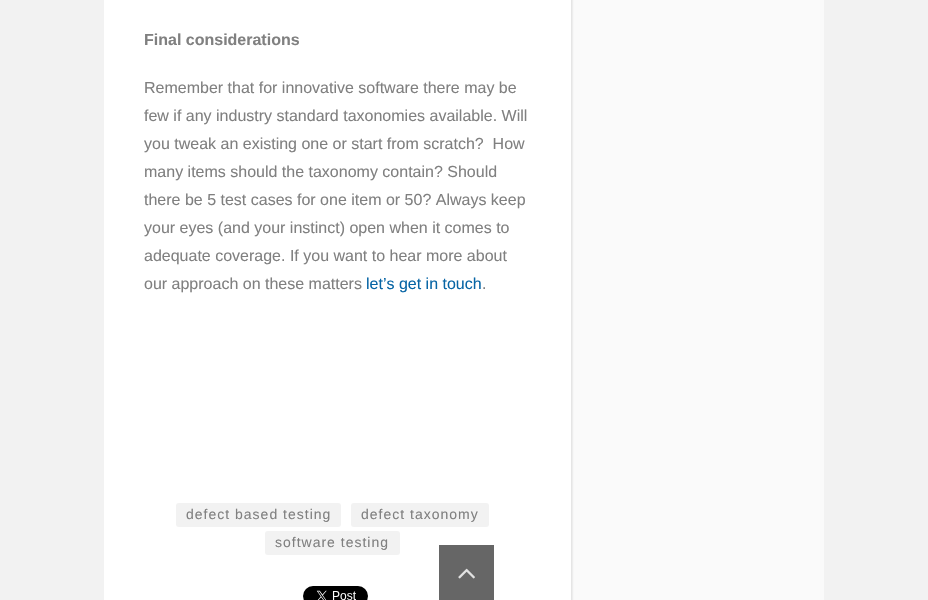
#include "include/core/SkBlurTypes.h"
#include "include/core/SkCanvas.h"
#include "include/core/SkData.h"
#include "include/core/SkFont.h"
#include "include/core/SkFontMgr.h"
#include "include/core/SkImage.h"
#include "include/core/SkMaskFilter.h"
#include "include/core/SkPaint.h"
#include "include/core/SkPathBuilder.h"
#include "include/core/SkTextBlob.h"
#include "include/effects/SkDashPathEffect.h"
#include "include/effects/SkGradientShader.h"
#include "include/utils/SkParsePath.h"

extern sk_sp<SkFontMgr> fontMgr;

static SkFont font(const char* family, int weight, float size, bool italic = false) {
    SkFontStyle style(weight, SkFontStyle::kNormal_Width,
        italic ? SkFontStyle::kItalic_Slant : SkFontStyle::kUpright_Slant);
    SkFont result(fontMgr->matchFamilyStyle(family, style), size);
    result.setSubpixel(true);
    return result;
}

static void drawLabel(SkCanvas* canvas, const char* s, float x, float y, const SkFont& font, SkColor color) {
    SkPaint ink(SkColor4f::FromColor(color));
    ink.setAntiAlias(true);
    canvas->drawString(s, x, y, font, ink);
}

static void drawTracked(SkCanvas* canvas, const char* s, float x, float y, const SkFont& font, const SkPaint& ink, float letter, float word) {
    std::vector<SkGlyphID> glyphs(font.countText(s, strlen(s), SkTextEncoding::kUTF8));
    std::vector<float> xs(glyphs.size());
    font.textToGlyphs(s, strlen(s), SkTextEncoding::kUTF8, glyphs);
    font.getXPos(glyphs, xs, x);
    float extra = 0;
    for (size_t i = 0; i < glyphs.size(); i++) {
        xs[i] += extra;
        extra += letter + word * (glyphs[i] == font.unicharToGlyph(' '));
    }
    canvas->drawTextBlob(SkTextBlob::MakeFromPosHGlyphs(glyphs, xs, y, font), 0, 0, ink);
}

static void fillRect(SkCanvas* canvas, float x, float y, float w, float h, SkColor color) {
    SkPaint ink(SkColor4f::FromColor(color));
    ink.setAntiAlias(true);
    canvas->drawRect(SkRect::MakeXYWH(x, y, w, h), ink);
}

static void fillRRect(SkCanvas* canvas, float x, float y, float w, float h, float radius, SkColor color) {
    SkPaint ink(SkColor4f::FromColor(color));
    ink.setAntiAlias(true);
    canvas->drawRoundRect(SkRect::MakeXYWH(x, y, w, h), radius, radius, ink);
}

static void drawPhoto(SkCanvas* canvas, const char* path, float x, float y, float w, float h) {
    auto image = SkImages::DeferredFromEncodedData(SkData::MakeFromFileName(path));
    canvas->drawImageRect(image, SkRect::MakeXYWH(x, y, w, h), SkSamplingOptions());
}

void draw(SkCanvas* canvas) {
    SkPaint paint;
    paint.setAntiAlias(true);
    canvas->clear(0xFFF2F2F2);
    fillRect(canvas, 572, 0, 252, 600, 0xFFFAFAFA);
    paint.setColor(0x0D000000);
    paint.setMaskFilter(SkMaskFilter::MakeBlur(kNormal_SkBlurStyle, 0.5f));
    canvas->drawRect(SkRect::MakeXYWH(105, -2, 468, 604), paint);
    paint.setMaskFilter(nullptr);
    fillRect(canvas, 104, 0, 467, 600, 0xFFFFFFFF);
    SkFont font1 = font("Liberation Sans", 700, 16);
    drawLabel(canvas, "Final considerations", 144, 45, font1, 0xFF808080);
    SkFont font2 = font("Liberation Sans", 400, 16);
    drawLabel(canvas, "Remember that for innovative software there may be", 144, 93, font2, 0xFF808080);
    drawLabel(canvas, "few if any industry standard taxonomies available. Will", 144, 121, font2, 0xFF808080);
    drawLabel(canvas, "you tweak an existing one or start from scratch?  How", 144, 149, font2, 0xFF808080);
    drawLabel(canvas, "many items should the taxonomy contain? Should", 144, 177, font2, 0xFF808080);
    drawLabel(canvas, "there be 5 test cases for one item or 50? Always keep", 144, 205, font2, 0xFF808080);
    drawLabel(canvas, "your eyes (and your instinct) open when it comes to", 144, 233, font2, 0xFF808080);
    drawLabel(canvas, "adequate coverage. If you want to hear more about", 144, 261, font2, 0xFF808080);
    drawLabel(canvas, "our approach on these matters", 144, 289, font2, 0xFF808080);
    drawLabel(canvas, "let’s get in touch", 366, 289, font2, 0xFF0765A5);
    drawLabel(canvas, ".", 482, 289, font2, 0xFF808080);
    fillRRect(canvas, 176, 503, 165, 24, 3, 0xFFF2F2F2);
    SkFont font3 = font("Liberation Sans", 400, 14);
    paint.setColor(0xFF808080);
    drawTracked(canvas, "defect based testing", 186, 519, font3, paint, 1, 0);
    fillRRect(canvas, 351, 503, 138, 24, 3, 0xFFF2F2F2);
    drawTracked(canvas, "defect taxonomy", 361, 519, font3, paint, 1, 0);
    fillRRect(canvas, 265, 531, 135, 24, 3, 0xFFF2F2F2);
    drawTracked(canvas, "software testing", 275, 547, font3, paint, 1, 0);
    drawPhoto(canvas, "assets/img1.png", 303, 586, 65, 14);
    fillRect(canvas, 439, 545, 55, 55, 0xFF666666);
    drawPhoto(canvas, "assets/img2.png", 458, 568, 17, 11);
}
